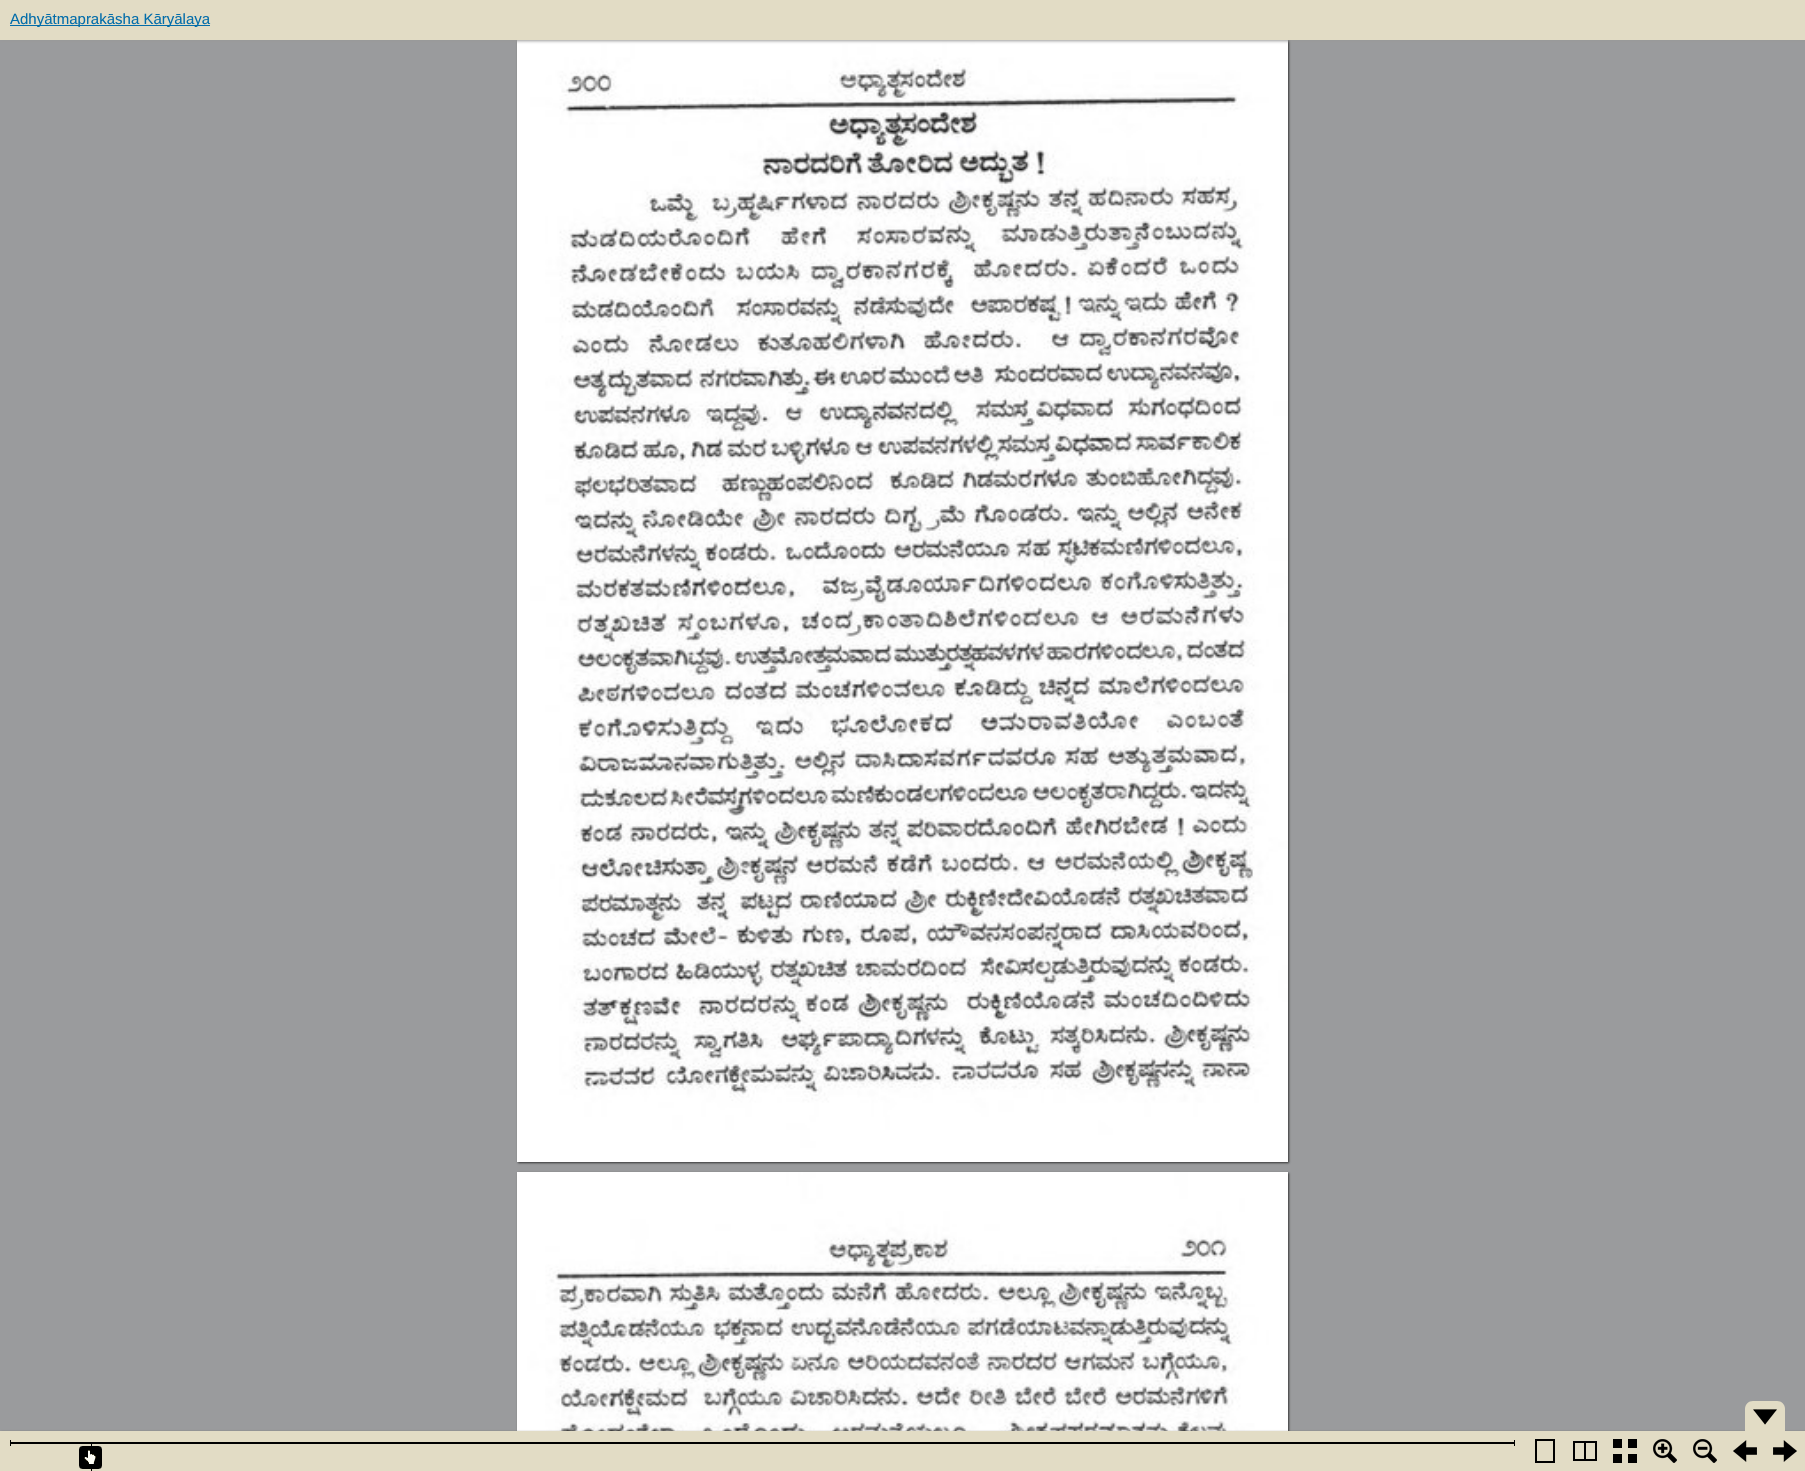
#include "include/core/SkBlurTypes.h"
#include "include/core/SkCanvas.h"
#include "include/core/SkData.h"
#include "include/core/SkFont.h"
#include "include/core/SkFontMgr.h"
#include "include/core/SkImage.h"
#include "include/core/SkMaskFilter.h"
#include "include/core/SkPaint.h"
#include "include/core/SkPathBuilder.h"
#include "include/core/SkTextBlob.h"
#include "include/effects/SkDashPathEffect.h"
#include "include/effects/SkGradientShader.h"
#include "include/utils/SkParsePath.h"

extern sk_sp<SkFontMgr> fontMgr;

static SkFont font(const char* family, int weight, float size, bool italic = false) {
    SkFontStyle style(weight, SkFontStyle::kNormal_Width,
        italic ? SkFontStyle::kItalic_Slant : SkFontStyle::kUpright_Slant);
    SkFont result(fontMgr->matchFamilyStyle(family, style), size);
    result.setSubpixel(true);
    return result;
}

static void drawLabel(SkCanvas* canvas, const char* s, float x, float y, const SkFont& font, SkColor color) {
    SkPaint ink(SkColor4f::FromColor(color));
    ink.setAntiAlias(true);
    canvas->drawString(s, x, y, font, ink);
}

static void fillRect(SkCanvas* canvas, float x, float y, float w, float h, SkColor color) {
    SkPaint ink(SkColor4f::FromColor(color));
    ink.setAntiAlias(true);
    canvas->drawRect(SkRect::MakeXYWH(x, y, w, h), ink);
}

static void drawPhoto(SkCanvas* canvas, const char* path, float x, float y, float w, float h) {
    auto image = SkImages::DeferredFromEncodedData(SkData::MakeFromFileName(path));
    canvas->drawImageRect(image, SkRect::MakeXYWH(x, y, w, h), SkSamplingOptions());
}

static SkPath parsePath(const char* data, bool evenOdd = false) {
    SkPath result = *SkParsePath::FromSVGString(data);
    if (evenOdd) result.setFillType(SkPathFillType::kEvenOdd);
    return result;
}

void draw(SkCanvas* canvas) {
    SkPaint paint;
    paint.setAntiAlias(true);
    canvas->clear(0xFF9A9B9D);
    paint.setColor(0xFF333333);
    paint.setMaskFilter(SkMaskFilter::MakeBlur(kNormal_SkBlurStyle, 1));
    canvas->drawRect(SkRect::MakeXYWH(518, 6, 771, 1157), paint);
    paint.setMaskFilter(nullptr);
    drawPhoto(canvas, "assets/img1.png", 517, 40, 771, 1122);
    paint.setColor(0xFF999999);
    paint.setMaskFilter(SkMaskFilter::MakeBlur(kNormal_SkBlurStyle, 1.5f));
    canvas->drawRect(SkRect::MakeXYWH(0, 1, 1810, 40), paint);
    paint.setMaskFilter(nullptr);
    fillRect(canvas, 0, 0, 1805, 40, 0xFFE2DCC5);
    fillRect(canvas, 10, 25, 200, 1, 0xFF036DAA);
    SkFont font1 = font("Liberation Sans", 400, 15);
    drawLabel(canvas, "Adhyātmaprakāsha Kāryālaya", 10, 24, font1, 0xFF036DAA);
    paint.setColor(0xFF333333);
    paint.setMaskFilter(SkMaskFilter::MakeBlur(kNormal_SkBlurStyle, 1));
    canvas->drawRect(SkRect::MakeXYWH(518, 1173, 771, 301), paint);
    paint.setMaskFilter(nullptr);
    drawPhoto(canvas, "assets/img2.png", 517, 1172, 771, 259);
    paint.setMaskFilter(SkMaskFilter::MakeBlur(kNormal_SkBlurStyle, 1));
    canvas->drawRect(SkRect::MakeXYWH(1, 1432, 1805, 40), paint);
    paint.setMaskFilter(nullptr);
    fillRect(canvas, 0, 1431, 1805, 40, 0xFFE2DCC5);
    paint.setColor(0xFFE2DCC5);
    canvas->drawPath(parsePath("M1753 1401H1777C1781.5 1401 1785 1404.5 1785 1409V1431H1745V1409C1745 1404.5 1748.5 1401 1753 1401Z"), paint);
    drawPhoto(canvas, "assets/img3.png", 1753, 1409, 24, 16);
    fillRect(canvas, 10, 1442, 1505, 2, 0xFF000000);
    fillRect(canvas, 10, 1440, 1, 6, 0xFF000000);
    fillRect(canvas, 1514, 1440, 1, 6, 0xFF000000);
    drawPhoto(canvas, "assets/img4.png", 79, 1444, 23, 27);
    drawPhoto(canvas, "assets/img5.png", 1535, 1439, 20, 24);
    drawPhoto(canvas, "assets/img6.png", 1573, 1441, 24, 20);
    drawPhoto(canvas, "assets/img7.png", 1613, 1439, 24, 24);
    drawPhoto(canvas, "assets/img8.png", 1653, 1439, 24, 24);
    drawPhoto(canvas, "assets/img9.png", 1693, 1439, 24, 24);
    drawPhoto(canvas, "assets/img10.png", 1733, 1440, 24, 22);
    drawPhoto(canvas, "assets/img11.png", 1773, 1440, 24, 22);
}
